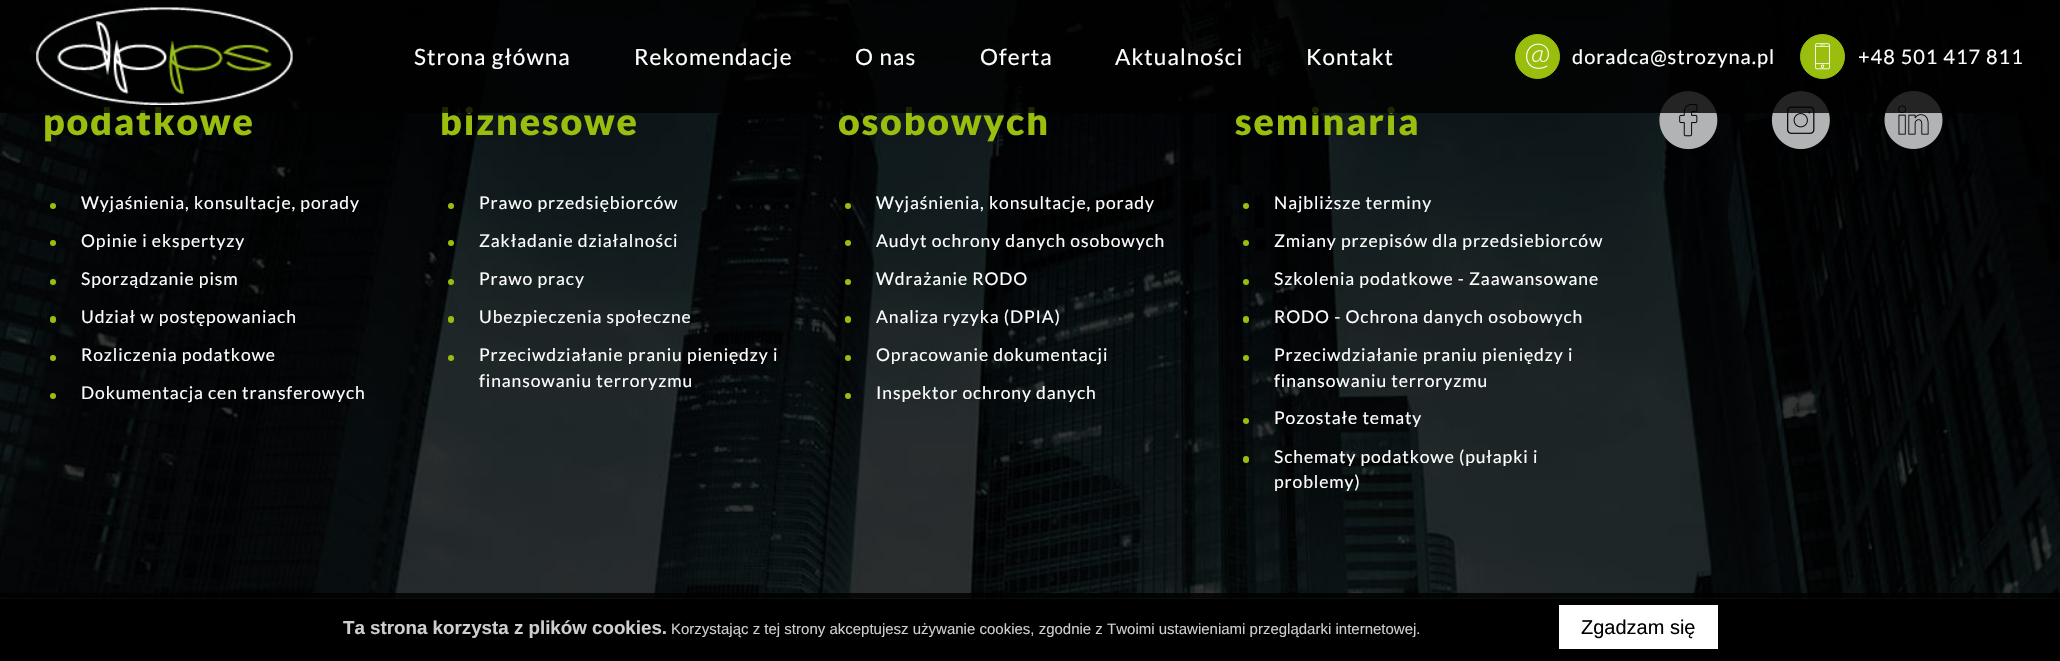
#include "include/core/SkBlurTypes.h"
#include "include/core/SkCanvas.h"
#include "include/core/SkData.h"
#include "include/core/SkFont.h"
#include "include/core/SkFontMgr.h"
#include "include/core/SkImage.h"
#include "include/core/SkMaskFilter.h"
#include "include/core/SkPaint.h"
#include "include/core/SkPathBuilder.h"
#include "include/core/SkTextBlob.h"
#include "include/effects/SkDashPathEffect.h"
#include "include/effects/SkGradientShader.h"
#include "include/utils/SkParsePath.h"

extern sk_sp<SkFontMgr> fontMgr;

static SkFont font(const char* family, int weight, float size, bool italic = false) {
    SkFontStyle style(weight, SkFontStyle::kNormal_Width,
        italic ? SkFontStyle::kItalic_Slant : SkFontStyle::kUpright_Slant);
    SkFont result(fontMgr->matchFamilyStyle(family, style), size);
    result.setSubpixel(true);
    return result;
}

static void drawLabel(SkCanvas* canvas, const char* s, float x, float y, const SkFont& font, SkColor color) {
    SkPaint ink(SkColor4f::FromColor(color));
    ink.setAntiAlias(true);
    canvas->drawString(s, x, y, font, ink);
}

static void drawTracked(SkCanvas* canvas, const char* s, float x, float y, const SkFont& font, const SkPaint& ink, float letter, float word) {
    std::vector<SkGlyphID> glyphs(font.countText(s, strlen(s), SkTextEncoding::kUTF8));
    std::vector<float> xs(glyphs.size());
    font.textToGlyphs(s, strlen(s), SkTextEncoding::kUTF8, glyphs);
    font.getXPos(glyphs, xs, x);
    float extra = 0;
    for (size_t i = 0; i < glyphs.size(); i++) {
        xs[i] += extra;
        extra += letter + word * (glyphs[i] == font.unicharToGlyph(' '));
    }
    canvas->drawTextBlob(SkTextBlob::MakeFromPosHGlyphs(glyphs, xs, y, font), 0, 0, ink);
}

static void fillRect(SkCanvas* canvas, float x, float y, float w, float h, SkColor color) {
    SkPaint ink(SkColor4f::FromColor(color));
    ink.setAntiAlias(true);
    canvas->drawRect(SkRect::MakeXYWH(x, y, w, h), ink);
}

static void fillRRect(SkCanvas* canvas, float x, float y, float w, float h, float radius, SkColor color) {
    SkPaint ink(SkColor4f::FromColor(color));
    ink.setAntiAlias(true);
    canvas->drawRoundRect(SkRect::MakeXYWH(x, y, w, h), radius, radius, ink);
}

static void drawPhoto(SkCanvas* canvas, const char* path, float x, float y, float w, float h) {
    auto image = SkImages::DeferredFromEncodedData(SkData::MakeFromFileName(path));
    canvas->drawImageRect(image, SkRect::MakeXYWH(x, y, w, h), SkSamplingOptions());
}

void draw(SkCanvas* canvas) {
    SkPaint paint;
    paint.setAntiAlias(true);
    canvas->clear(0xFFFFFFFF);
    drawPhoto(canvas, "assets/img4.png", 0, 0, 2060, 599);
    SkFont font1 = font("Lato", 900, 37.5f);
    paint.setColor(0xFF9ABE0E);
    drawTracked(canvas, "podatkowe", 43, 135, font1, paint, 1.9f, 0);
    drawTracked(canvas, "biznesowe", 440, 135, font1, paint, 1.9f, 0);
    drawTracked(canvas, "osobowych", 838, 135, font1, paint, 1.9f, 0);
    drawTracked(canvas, "seminaria", 1235, 135, font1, paint, 1.9f, 0);
    drawPhoto(canvas, "assets/img5.png", 1659, 91, 59, 59);
    drawPhoto(canvas, "assets/img6.png", 1771, 91, 59, 59);
    drawPhoto(canvas, "assets/img7.png", 1884, 91, 59, 58);
    fillRect(canvas, 0, 0, 2060, 113, 0xCC000000);
    drawPhoto(canvas, "assets/img1.png", 36, 7, 257, 98);
    SkFont font2 = font("Lato", 400, 22.5f);
    paint.setColor(0xFFFFFFFF);
    drawTracked(canvas, "Strona główna", 414, 65, font2, paint, 1.1f, 0);
    drawTracked(canvas, "Rekomendacje", 634, 65, font2, paint, 1.1f, 0);
    drawTracked(canvas, "O nas", 855, 65, font2, paint, 1.1f, 0);
    drawTracked(canvas, "Oferta", 980, 65, font2, paint, 1.1f, 0);
    drawTracked(canvas, "Aktualności", 1115, 65, font2, paint, 1.1f, 0);
    drawTracked(canvas, "Kontakt", 1306, 65, font2, paint, 1.1f, 0);
    paint.setColor(0xFF9ABE0E);
    canvas->drawCircle(1537.5f, 56.5f, 22, paint);
    paint.setStroke(true);
    paint.setStrokeWidth(1);
    canvas->drawCircle(1537.5f, 56.5f, 22, paint);
    drawPhoto(canvas, "assets/img2.png", 1526, 43, 23, 26);
    SkFont font3 = font("Lato", 400, 20);
    paint.setStroke(false);
    paint.setColor(0xFFFFFFFF);
    drawTracked(canvas, "doradca@strozyna.pl", 1572, 64, font3, paint, 1, 0);
    paint.setColor(0xFF9ABE0E);
    canvas->drawCircle(1822.5f, 56.5f, 22, paint);
    paint.setStroke(true);
    canvas->drawCircle(1822.5f, 56.5f, 22, paint);
    drawPhoto(canvas, "assets/img3.png", 1815, 43, 15, 27);
    paint.setStroke(false);
    paint.setColor(0xFFFFFFFF);
    drawTracked(canvas, "+48 501 417 811", 1858, 64, font3, paint, 1, 0);
    paint.setColor(0xFF9ABE0E);
    canvas->drawCircle(53, 206, 3, paint);
    SkFont font4 = font("Lato", 400, 17.5f);
    paint.setColor(0xFFFFFFFF);
    drawTracked(canvas, "Wyjaśnienia, konsultacje, porady", 81, 209, font4, paint, 0.9f, 0);
    paint.setColor(0xFF9ABE0E);
    canvas->drawCircle(53, 243, 3, paint);
    paint.setColor(0xFFFFFFFF);
    drawTracked(canvas, "Opinie i ekspertyzy", 81, 247, font4, paint, 0.9f, 0);
    paint.setColor(0xFF9ABE0E);
    canvas->drawCircle(53, 282, 3, paint);
    paint.setColor(0xFFFFFFFF);
    drawTracked(canvas, "Sporządzanie pism", 81, 285, font4, paint, 0.9f, 0);
    fillRRect(canvas, 50, 316, 6, 7, 3, 0xFF9ABE0E);
    drawTracked(canvas, "Udział w postępowaniach", 81, 323, font4, paint, 0.9f, 0);
    paint.setColor(0xFF9ABE0E);
    canvas->drawCircle(53, 358, 3, paint);
    paint.setColor(0xFFFFFFFF);
    drawTracked(canvas, "Rozliczenia podatkowe", 81, 361, font4, paint, 0.9f, 0);
    paint.setColor(0xFF9ABE0E);
    canvas->drawCircle(53, 396, 3, paint);
    paint.setColor(0xFFFFFFFF);
    drawTracked(canvas, "Dokumentacja cen transferowych", 81, 399, font4, paint, 0.9f, 0);
    paint.setColor(0xFF9ABE0E);
    canvas->drawCircle(451, 206, 3, paint);
    paint.setColor(0xFFFFFFFF);
    drawTracked(canvas, "Prawo przedsiębiorców", 479, 209, font4, paint, 0.9f, 0);
    paint.setColor(0xFF9ABE0E);
    canvas->drawCircle(451, 243, 3, paint);
    paint.setColor(0xFFFFFFFF);
    drawTracked(canvas, "Zakładanie działalności", 479, 247, font4, paint, 0.9f, 0);
    paint.setColor(0xFF9ABE0E);
    canvas->drawCircle(451, 282, 3, paint);
    paint.setColor(0xFFFFFFFF);
    drawTracked(canvas, "Prawo pracy", 479, 285, font4, paint, 0.9f, 0);
    fillRRect(canvas, 448, 316, 6, 7, 3, 0xFF9ABE0E);
    drawTracked(canvas, "Ubezpieczenia społeczne", 479, 323, font4, paint, 0.9f, 0);
    paint.setColor(0xFF9ABE0E);
    canvas->drawCircle(451, 358, 3, paint);
    paint.setColor(0xFFFFFFFF);
    drawTracked(canvas, "Przeciwdziałanie praniu pieniędzy i", 479, 361, font4, paint, 0.9f, 0);
    drawTracked(canvas, "finansowaniu terroryzmu", 479, 387, font4, paint, 0.9f, 0);
    paint.setColor(0xFF9ABE0E);
    canvas->drawCircle(848, 206, 3, paint);
    paint.setColor(0xFFFFFFFF);
    drawTracked(canvas, "Wyjaśnienia, konsultacje, porady", 876, 209, font4, paint, 0.9f, 0);
    paint.setColor(0xFF9ABE0E);
    canvas->drawCircle(848, 243, 3, paint);
    paint.setColor(0xFFFFFFFF);
    drawTracked(canvas, "Audyt ochrony danych osobowych", 876, 247, font4, paint, 0.9f, 0);
    paint.setColor(0xFF9ABE0E);
    canvas->drawCircle(848, 282, 3, paint);
    paint.setColor(0xFFFFFFFF);
    drawTracked(canvas, "Wdrażanie RODO", 876, 285, font4, paint, 0.9f, 0);
    fillRRect(canvas, 845, 316, 6, 7, 3, 0xFF9ABE0E);
    drawTracked(canvas, "Analiza ryzyka (DPIA)", 876, 323, font4, paint, 0.9f, 0);
    paint.setColor(0xFF9ABE0E);
    canvas->drawCircle(848, 358, 3, paint);
    paint.setColor(0xFFFFFFFF);
    drawTracked(canvas, "Opracowanie dokumentacji", 876, 361, font4, paint, 0.9f, 0);
    paint.setColor(0xFF9ABE0E);
    canvas->drawCircle(848, 396, 3, paint);
    paint.setColor(0xFFFFFFFF);
    drawTracked(canvas, "Inspektor ochrony danych", 876, 399, font4, paint, 0.9f, 0);
    paint.setColor(0xFF9ABE0E);
    canvas->drawCircle(1246, 206, 3, paint);
    paint.setColor(0xFFFFFFFF);
    drawTracked(canvas, "Najbliższe terminy", 1274, 209, font4, paint, 0.9f, 0);
    paint.setColor(0xFF9ABE0E);
    canvas->drawCircle(1246, 243, 3, paint);
    paint.setColor(0xFFFFFFFF);
    drawTracked(canvas, "Zmiany przepisów dla przedsiebiorców", 1274, 247, font4, paint, 0.9f, 0);
    paint.setColor(0xFF9ABE0E);
    canvas->drawCircle(1246, 282, 3, paint);
    paint.setColor(0xFFFFFFFF);
    drawTracked(canvas, "Szkolenia podatkowe - Zaawansowane", 1274, 285, font4, paint, 0.9f, 0);
    fillRRect(canvas, 1243, 316, 6, 7, 3, 0xFF9ABE0E);
    drawTracked(canvas, "RODO - Ochrona danych osobowych", 1274, 323, font4, paint, 0.9f, 0);
    paint.setColor(0xFF9ABE0E);
    canvas->drawCircle(1246, 358, 3, paint);
    paint.setColor(0xFFFFFFFF);
    drawTracked(canvas, "Przeciwdziałanie praniu pieniędzy i", 1274, 361, font4, paint, 0.9f, 0);
    drawTracked(canvas, "finansowaniu terroryzmu", 1274, 387, font4, paint, 0.9f, 0);
    paint.setColor(0xFF9ABE0E);
    canvas->drawCircle(1246, 421, 3, paint);
    paint.setColor(0xFFFFFFFF);
    drawTracked(canvas, "Pozostałe tematy", 1274, 424, font4, paint, 0.9f, 0);
    fillRRect(canvas, 1243, 456, 6, 7, 3, 0xFF9ABE0E);
    drawTracked(canvas, "Schematy podatkowe (pułapki i", 1274, 463, font4, paint, 0.9f, 0);
    drawTracked(canvas, "problemy)", 1274, 488, font4, paint, 0.9f, 0);
    fillRect(canvas, 0, 599, 2060, 62, 0xFF000000);
    fillRect(canvas, 0, 593, 2060, 6, 0xD9000000);
    SkFont font5 = font("Liberation Sans", 700, 18.75f);
    drawLabel(canvas, "Ta strona korzysta z plików cookies.", 343, 634, font5, 0xFFCECECE);
    SkFont font6 = font("Liberation Sans", 400, 15);
    drawLabel(canvas, "Korzystając z tej strony akceptujesz używanie cookies, zgodnie z Twoimi ustawieniami przeglądarki internetowej.", 671, 634, font6, 0xFFCECECE);
    fillRect(canvas, 1559, 605, 159, 44, 0xFFFFFFFF);
    SkFont font7 = font("Liberation Sans", 400, 20);
    drawLabel(canvas, "Zgadzam się", 1581, 634, font7, 0xFF000000);
}
